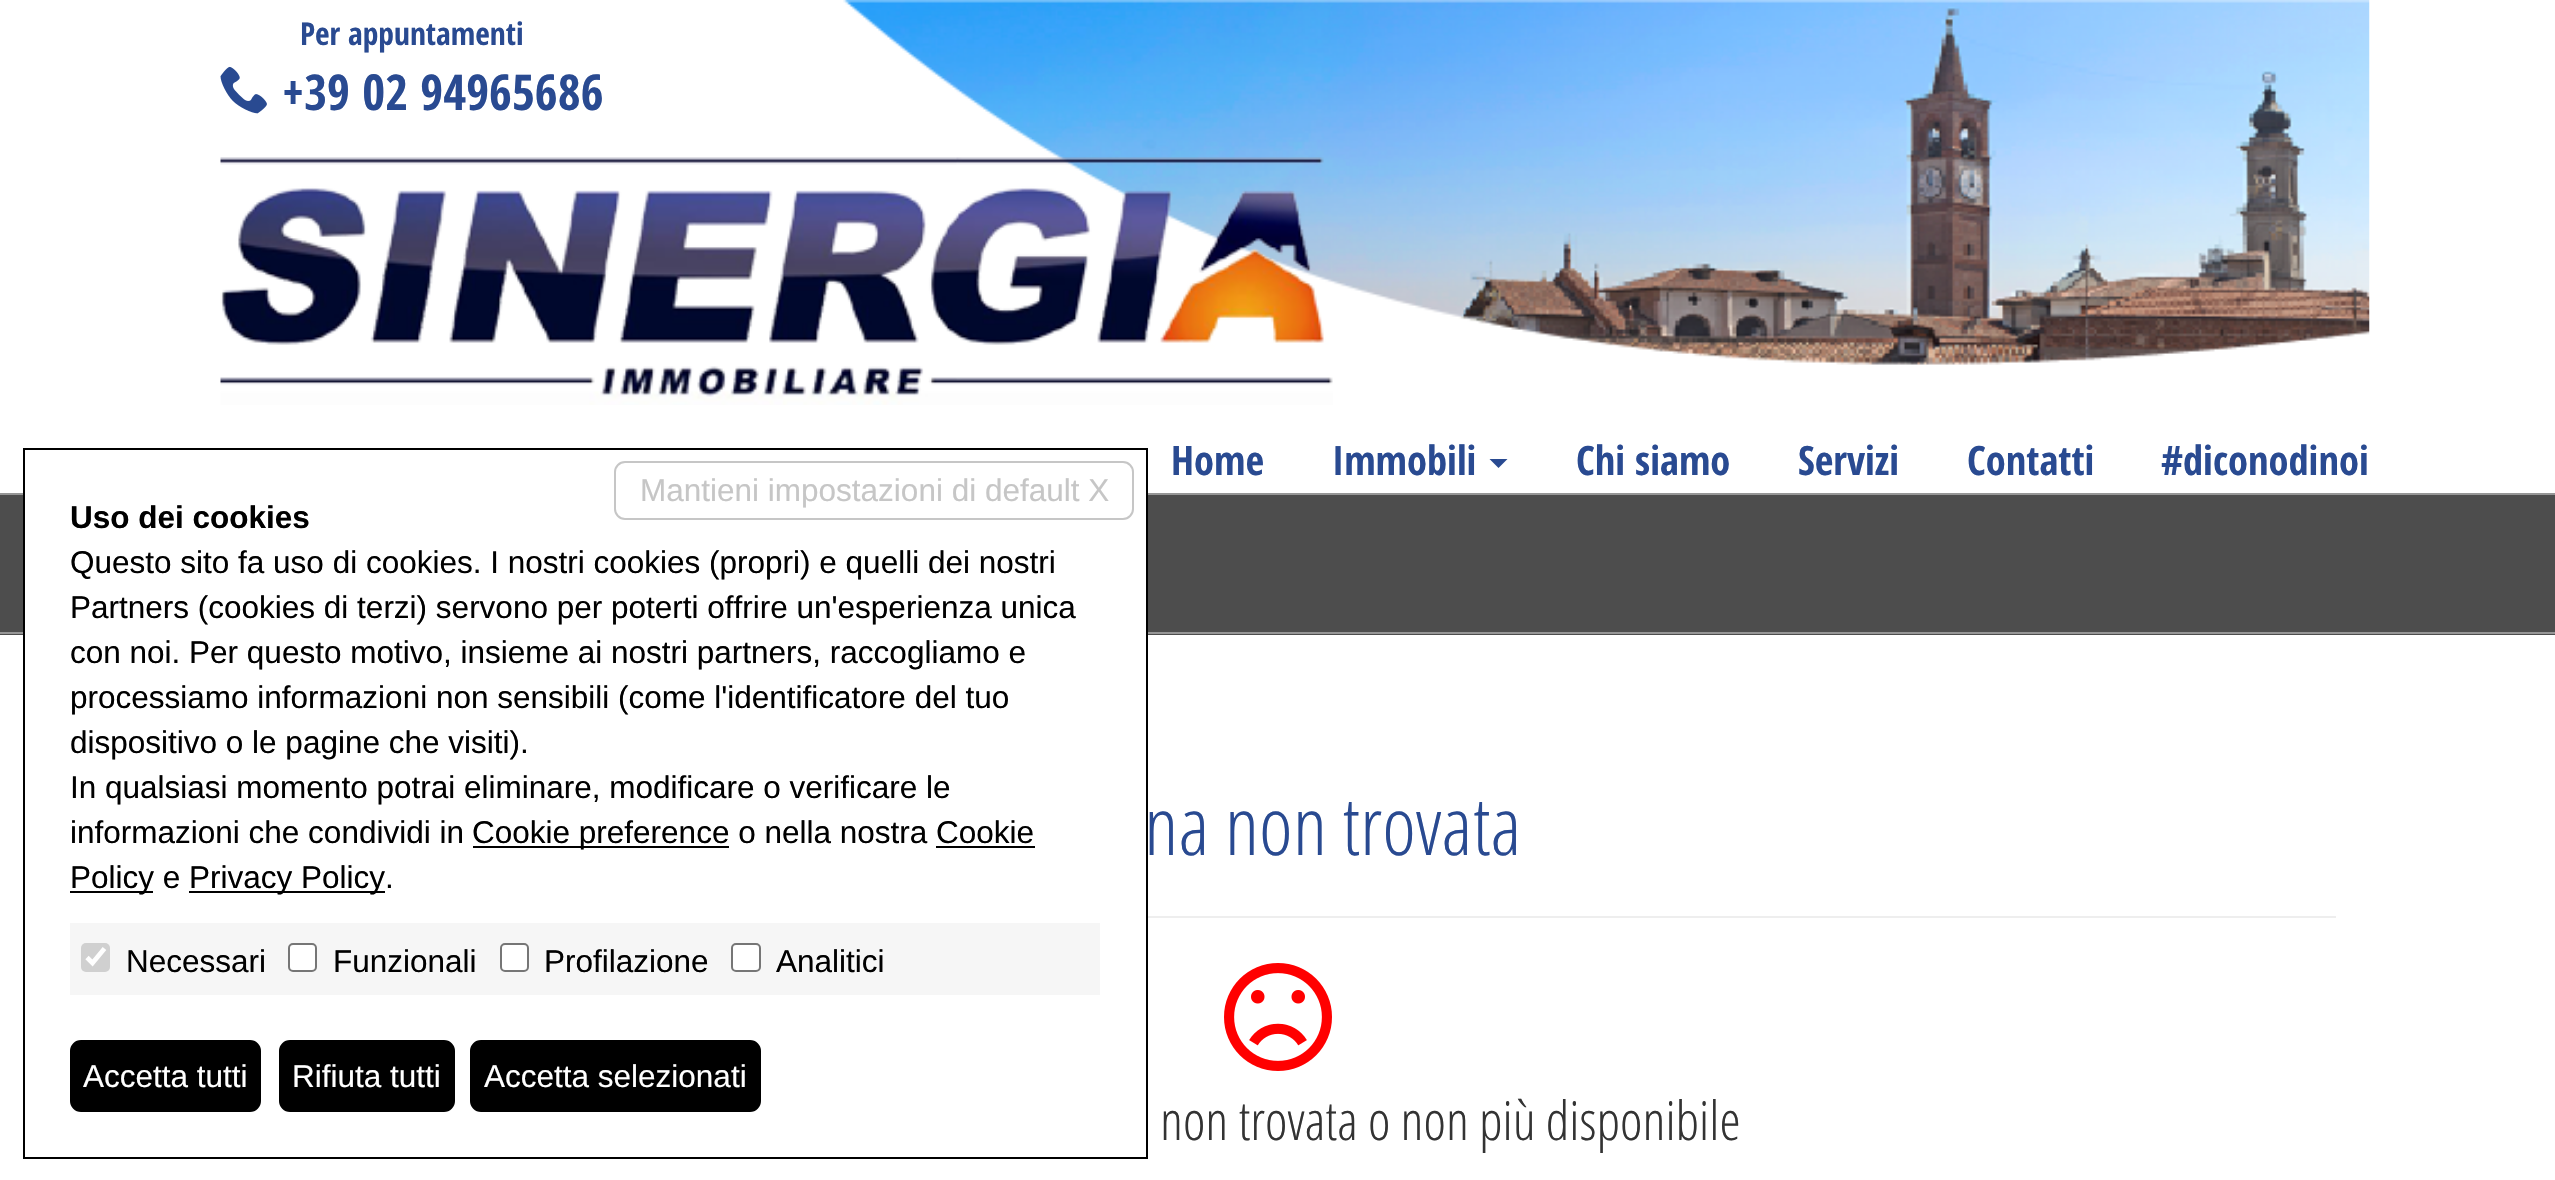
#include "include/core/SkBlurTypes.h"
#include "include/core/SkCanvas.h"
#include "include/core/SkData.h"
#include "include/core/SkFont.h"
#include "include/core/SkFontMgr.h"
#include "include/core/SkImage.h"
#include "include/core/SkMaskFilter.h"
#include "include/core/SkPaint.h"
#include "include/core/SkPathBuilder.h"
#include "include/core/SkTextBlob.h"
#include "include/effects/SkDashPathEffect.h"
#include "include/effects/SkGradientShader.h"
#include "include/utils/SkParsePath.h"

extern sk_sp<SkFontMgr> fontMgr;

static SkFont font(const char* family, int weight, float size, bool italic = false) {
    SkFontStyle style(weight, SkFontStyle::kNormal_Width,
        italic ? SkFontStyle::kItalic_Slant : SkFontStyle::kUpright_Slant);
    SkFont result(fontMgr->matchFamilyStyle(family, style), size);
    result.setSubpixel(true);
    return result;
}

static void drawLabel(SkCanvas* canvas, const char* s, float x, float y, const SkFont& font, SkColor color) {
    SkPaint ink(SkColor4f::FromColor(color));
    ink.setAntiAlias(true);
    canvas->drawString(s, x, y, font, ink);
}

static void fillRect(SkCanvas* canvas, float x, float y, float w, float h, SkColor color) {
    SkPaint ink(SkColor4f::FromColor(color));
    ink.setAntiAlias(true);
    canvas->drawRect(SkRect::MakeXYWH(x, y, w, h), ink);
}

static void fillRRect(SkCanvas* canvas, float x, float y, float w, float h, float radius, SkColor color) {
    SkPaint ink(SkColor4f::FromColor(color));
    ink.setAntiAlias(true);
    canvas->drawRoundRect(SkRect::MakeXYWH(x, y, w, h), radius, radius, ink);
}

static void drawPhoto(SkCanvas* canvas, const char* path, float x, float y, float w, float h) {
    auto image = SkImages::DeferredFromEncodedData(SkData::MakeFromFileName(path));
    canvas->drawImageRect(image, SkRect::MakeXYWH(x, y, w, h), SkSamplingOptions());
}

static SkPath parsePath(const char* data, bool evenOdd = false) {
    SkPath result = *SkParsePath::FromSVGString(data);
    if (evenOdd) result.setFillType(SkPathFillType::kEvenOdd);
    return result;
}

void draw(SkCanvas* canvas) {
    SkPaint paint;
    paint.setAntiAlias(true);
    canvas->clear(0xFFFFFFFF);
    fillRect(canvas, 0, 493, 2555, 2, 0xFF969696);
    drawPhoto(canvas, "assets/img1.png", 843, 0, 1527, 365);
    SkFont font1 = font("Open Sans Condensed", 700, 31.5f);
    drawLabel(canvas, "Per appuntamenti", 300, 45, font1, 0xFF294A91);
    drawPhoto(canvas, "assets/img2.png", 220, 66, 47, 48);
    SkFont font2 = font("Open Sans Condensed", 700, 49.5f);
    drawLabel(canvas, "+39 02 94965686", 282, 110, font2, 0xFF294A91);
    drawPhoto(canvas, "assets/img3.png", 220, 157, 1113, 248);
    SkFont font3 = font("Open Sans Condensed", 700, 40.5f);
    drawLabel(canvas, "Home", 1171, 475, font3, 0xFF294A91);
    drawLabel(canvas, "Immobili", 1332, 475, font3, 0xFF294A91);
    paint.setColor(0xFF294A91);
    canvas->drawPath(parsePath("M1489.5 459H1507.5L1498.5 468Z"), paint);
    drawLabel(canvas, "Chi siamo", 1576, 475, font3, 0xFF294A91);
    drawLabel(canvas, "Servizi", 1798, 475, font3, 0xFF294A91);
    drawLabel(canvas, "Contatti", 1967, 475, font3, 0xFF294A91);
    drawLabel(canvas, "#diconodinoi", 2161, 475, font3, 0xFF294A91);
    fillRect(canvas, 0, 495, 2555, 140, 0xFF4D4D4D);
    fillRect(canvas, 0, 632, 2555, 2, 0xFF969696);
    fillRect(canvas, 25, 493, 1121, 142, 0xFFFFFFFF);
    paint.setStroke(true);
    paint.setStrokeWidth(2);
    paint.setColor(0xFF000000);
    canvas->drawRect(SkRect::MakeXYWH(24, 449, 1123, 709), paint);
    paint.setColor(0xFFC6C6C6);
    canvas->drawRoundRect(SkRect::MakeXYWH(615, 462, 518, 57), 10, 10, paint);
    SkFont font4 = font("Liberation Sans", 400, 31.5f);
    drawLabel(canvas, "Mantieni impostazioni di default X", 640, 501, font4, 0xFFC6C6C6);
    SkFont font5 = font("Liberation Sans", 700, 31.5f);
    drawLabel(canvas, "Uso dei cookies", 70, 528, font5, 0xFF000000);
    drawLabel(canvas, "Questo sito fa uso di cookies. I nostri cookies (propri) e quelli dei nostri", 70, 573, font4, 0xFF000000);
    drawLabel(canvas, "Partners (cookies di terzi) servono per poterti offrire un'esperienza unica", 70, 618, font4, 0xFF000000);
    drawLabel(canvas, "con noi. Per questo motivo, insieme ai nostri partners, raccogliamo e", 70, 663, font4, 0xFF000000);
    drawLabel(canvas, "processiamo informazioni non sensibili (come l'identificatore del tuo", 70, 708, font4, 0xFF000000);
    drawLabel(canvas, "dispositivo o le pagine che visiti).", 70, 753, font4, 0xFF000000);
    drawLabel(canvas, "In qualsiasi momento potrai eliminare, modificare o verificare le", 70, 798, font4, 0xFF000000);
    drawLabel(canvas, "informazioni che condividi in", 70, 843, font4, 0xFF000000);
    fillRect(canvas, 473, 846, 256, 2, 0xFF000000);
    drawLabel(canvas, "Cookie preference o nella nostra Cookie", 472, 843, font4, 0xFF000000);
    fillRect(canvas, 70, 891, 83, 2, 0xFF000000);
    drawLabel(canvas, "Policy e", 70, 888, font4, 0xFF000000);
    fillRect(canvas, 936, 846, 99, 2, 0xFF000000);
    fillRect(canvas, 189, 891, 196, 2, 0xFF000000);
    drawLabel(canvas, "Privacy Policy.", 189, 888, font4, 0xFF000000);
    fillRect(canvas, 70, 923, 1030, 72, 0xFFF6F6F6);
    fillRRect(canvas, 81, 943, 29, 29, 5, 0xFFD0D0D0);
    paint.setStrokeWidth(4.7f);
    paint.setColor(0xFFFFFFFF);
    canvas->drawPath(parsePath("M87 957.5L92.5 963L104.5 948.5"), paint);
    drawLabel(canvas, "Necessari", 126, 972, font4, 0xFF000000);
    paint.setStroke(false);
    canvas->drawRoundRect(SkRect::MakeXYWH(289, 944, 27, 27), 4, 4, paint);
    paint.setStroke(true);
    paint.setStrokeWidth(2);
    paint.setColor(0xFF767676);
    canvas->drawRoundRect(SkRect::MakeXYWH(289, 944, 27, 27), 4, 4, paint);
    drawLabel(canvas, "Funzionali", 333, 972, font4, 0xFF000000);
    paint.setStroke(false);
    paint.setColor(0xFFFFFFFF);
    canvas->drawRoundRect(SkRect::MakeXYWH(501, 944, 27, 27), 4, 4, paint);
    paint.setStroke(true);
    paint.setColor(0xFF767676);
    canvas->drawRoundRect(SkRect::MakeXYWH(501, 944, 27, 27), 4, 4, paint);
    drawLabel(canvas, "Profilazione", 544, 972, font4, 0xFF000000);
    paint.setStroke(false);
    paint.setColor(0xFFFFFFFF);
    canvas->drawRoundRect(SkRect::MakeXYWH(732, 944, 28, 27), 4, 4, paint);
    paint.setStroke(true);
    paint.setColor(0xFF767676);
    canvas->drawRoundRect(SkRect::MakeXYWH(732, 944, 28, 27), 4, 4, paint);
    drawLabel(canvas, "Analitici", 776, 972, font4, 0xFF000000);
    paint.setStroke(false);
    paint.setColor(0xFF000000);
    canvas->drawRoundRect(SkRect::MakeXYWH(71, 1041, 189, 70), 10, 10, paint);
    paint.setStroke(true);
    canvas->drawRoundRect(SkRect::MakeXYWH(71, 1041, 189, 70), 10, 10, paint);
    drawLabel(canvas, "Accetta tutti", 83, 1087, font4, 0xFFFFFFFF);
    paint.setStroke(false);
    canvas->drawRoundRect(SkRect::MakeXYWH(280, 1041, 174, 70), 10, 10, paint);
    paint.setStroke(true);
    canvas->drawRoundRect(SkRect::MakeXYWH(280, 1041, 174, 70), 10, 10, paint);
    drawLabel(canvas, "Rifiuta tutti", 292, 1087, font4, 0xFFFFFFFF);
    paint.setStroke(false);
    canvas->drawRoundRect(SkRect::MakeXYWH(471, 1041, 289, 70), 10, 10, paint);
    paint.setStroke(true);
    canvas->drawRoundRect(SkRect::MakeXYWH(471, 1041, 289, 70), 10, 10, paint);
    drawLabel(canvas, "Accetta selezionati", 484, 1087, font4, 0xFFFFFFFF);
    SkFont font6 = font("Open Sans Condensed", 300, 81);
    drawLabel(canvas, "na non trovata", 1144, 855, font6, 0xFF294A91);
    fillRect(canvas, 1148, 916, 1188, 2, 0xFFEEEEEE);
    drawPhoto(canvas, "assets/img4.png", 1224, 963, 108, 108);
    SkFont font7 = font("Open Sans Condensed", 300, 54);
    drawLabel(canvas, "non trovata o non più disponibile", 1160, 1140, font7, 0xFF333333);
}
